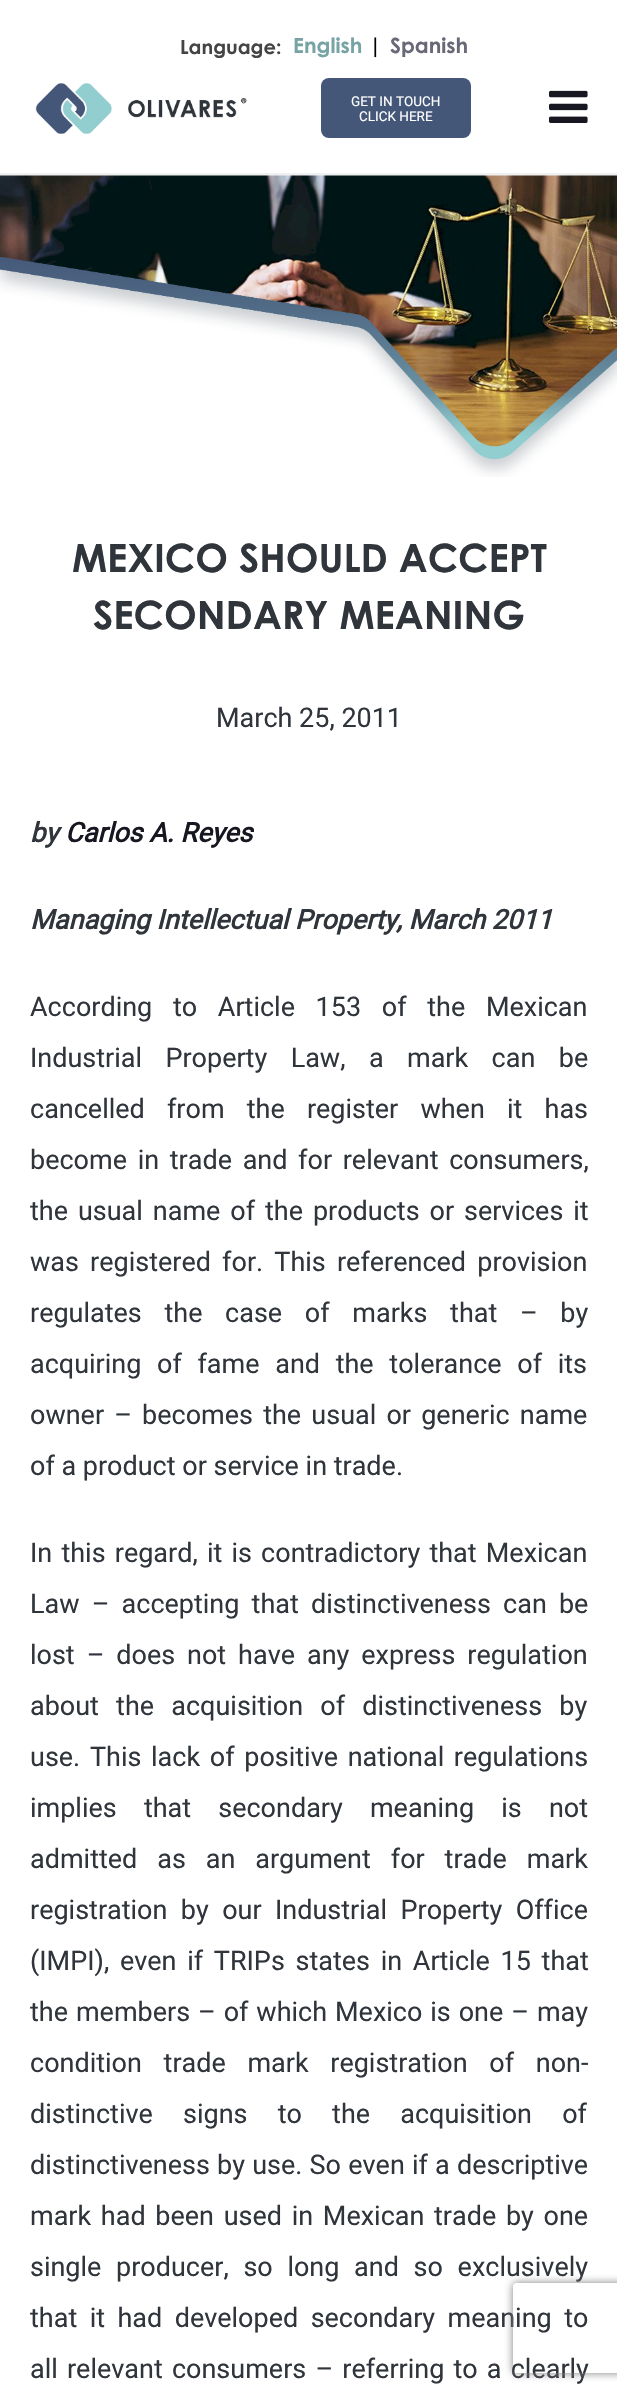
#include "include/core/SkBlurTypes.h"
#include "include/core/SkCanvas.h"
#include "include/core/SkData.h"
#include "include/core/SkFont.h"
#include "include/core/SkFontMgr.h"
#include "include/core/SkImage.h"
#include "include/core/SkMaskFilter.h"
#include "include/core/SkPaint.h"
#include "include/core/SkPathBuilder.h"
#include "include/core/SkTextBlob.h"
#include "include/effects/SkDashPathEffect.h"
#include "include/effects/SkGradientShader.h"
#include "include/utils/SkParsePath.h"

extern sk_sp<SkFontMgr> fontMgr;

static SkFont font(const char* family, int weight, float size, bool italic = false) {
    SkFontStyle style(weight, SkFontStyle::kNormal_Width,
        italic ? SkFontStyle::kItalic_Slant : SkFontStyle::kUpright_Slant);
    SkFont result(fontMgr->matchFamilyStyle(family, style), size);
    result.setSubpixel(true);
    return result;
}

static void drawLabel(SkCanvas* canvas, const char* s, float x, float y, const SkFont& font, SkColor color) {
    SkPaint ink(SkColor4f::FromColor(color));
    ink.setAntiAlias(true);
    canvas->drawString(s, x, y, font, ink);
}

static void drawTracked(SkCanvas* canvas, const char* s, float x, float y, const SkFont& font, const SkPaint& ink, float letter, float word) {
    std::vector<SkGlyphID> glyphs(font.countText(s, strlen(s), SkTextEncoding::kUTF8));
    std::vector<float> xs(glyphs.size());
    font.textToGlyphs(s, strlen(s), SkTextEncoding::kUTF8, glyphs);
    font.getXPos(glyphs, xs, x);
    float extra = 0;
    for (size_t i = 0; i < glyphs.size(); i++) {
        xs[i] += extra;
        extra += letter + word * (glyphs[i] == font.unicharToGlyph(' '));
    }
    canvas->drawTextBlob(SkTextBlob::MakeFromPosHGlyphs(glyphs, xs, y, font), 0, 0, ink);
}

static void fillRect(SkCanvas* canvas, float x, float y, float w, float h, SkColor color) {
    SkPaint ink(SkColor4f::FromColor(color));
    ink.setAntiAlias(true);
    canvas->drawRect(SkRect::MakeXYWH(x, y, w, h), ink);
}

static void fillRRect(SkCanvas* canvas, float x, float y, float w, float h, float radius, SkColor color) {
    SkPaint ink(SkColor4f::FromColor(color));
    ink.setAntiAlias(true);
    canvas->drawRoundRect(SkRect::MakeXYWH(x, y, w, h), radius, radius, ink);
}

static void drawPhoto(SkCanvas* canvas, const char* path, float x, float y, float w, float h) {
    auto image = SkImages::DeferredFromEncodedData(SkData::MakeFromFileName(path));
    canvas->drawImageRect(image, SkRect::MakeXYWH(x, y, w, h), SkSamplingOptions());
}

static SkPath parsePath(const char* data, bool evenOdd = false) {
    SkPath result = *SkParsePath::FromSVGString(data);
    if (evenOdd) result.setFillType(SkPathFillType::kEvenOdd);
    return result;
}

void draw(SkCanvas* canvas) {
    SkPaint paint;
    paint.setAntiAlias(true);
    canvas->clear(0xFFFFFFFF);
    SkFont font1 = font("Century Gothic", 700, 19.5f);
    drawLabel(canvas, "Language:", 180, 54, font1, 0xFF444444);
    SkFont font2 = font("Century Gothic", 700, 21);
    drawLabel(canvas, "English", 293, 53, font2, 0xFF78A3A5);
    drawLabel(canvas, "|", 369, 53, font2, 0xFF000000);
    drawLabel(canvas, "Spanish", 390, 53, font2, 0xFF686876);
    fillRect(canvas, 0, 173, 617, 3, 0xFFF0F0F0);
    drawPhoto(canvas, "assets/img1.png", 35, 83, 212, 51);
    fillRRect(canvas, 321, 78, 150, 60, 8, 0xFF445778);
    SkFont font3 = font("Roboto", 400, 13.5f);
    drawLabel(canvas, "GET IN TOUCH", 351, 106, font3, 0xFFFFFFFF);
    drawLabel(canvas, "CLICK HERE", 359, 121, font3, 0xFFFFFFFF);
    drawPhoto(canvas, "assets/img2.png", 549, 90, 39, 33);
    drawPhoto(canvas, "assets/img3.png", 0, 175, 617, 302);
    SkFont font4 = font("Century Gothic", 700, 39);
    drawLabel(canvas, "MEXICO SHOULD ACCEPT", 72, 572, font4, 0xFF30353C);
    drawLabel(canvas, "SECONDARY MEANING", 93, 629, font4, 0xFF30353C);
    SkFont font5 = font("Roboto", 400, 27);
    drawLabel(canvas, "March 25, 2011", 216, 727, font5, 0xFF30353C);
    SkFont font6 = font("Roboto", 700, 27, true);
    drawLabel(canvas, "by", 30, 842, font6, 0xFF30353C);
    drawLabel(canvas, "Carlos A. Reyes", 65, 842, font6, 0xFF171721);
    drawLabel(canvas, "Managing Intellectual Property, March 2011", 30, 929, font6, 0xFF30353C);
    paint.setColor(0xFF30353C);
    drawTracked(canvas, "According to Article 153 of the Mexican", 30, 1016, font5, paint, 0, 14);
    drawTracked(canvas, "Industrial Property Law, a mark can be", 30, 1067, font5, paint, 0, 16.75f);
    drawTracked(canvas, "cancelled from the register when it has", 30, 1118, font5, paint, 0, 15.5f);
    drawTracked(canvas, "become in trade and for relevant consumers,", 30, 1169, font5, paint, 0, 4);
    drawTracked(canvas, "the usual name of the products or services it", 30, 1220, font5, paint, 0, 3.25f);
    drawTracked(canvas, "was registered for. This referenced provision", 30, 1271, font5, paint, 0, 4.5f);
    drawTracked(canvas, "regulates the case of marks that – by", 30, 1322, font5, paint, 0, 16);
    drawTracked(canvas, "acquiring of fame and the tolerance of its", 30, 1373, font5, paint, 0, 9);
    drawTracked(canvas, "owner – becomes the usual or generic name", 30, 1424, font5, paint, 0, 3.5f);
    drawLabel(canvas, "of a product or service in trade.", 30, 1475, font5, 0xFF30353C);
    drawTracked(canvas, "In this regard, it is contradictory that Mexican", 30, 1562, font5, paint, 0, 2.5f);
    drawTracked(canvas, "Law – accepting that distinctiveness can be", 30, 1613, font5, paint, 0, 5.5f);
    drawTracked(canvas, "lost – does not have any express regulation", 30, 1664, font5, paint, 0, 5.25f);
    drawTracked(canvas, "about the acquisition of distinctiveness by", 30, 1715, font5, paint, 0, 10.5f);
    drawTracked(canvas, "use. This lack of positive national regulations", 30, 1766, font5, paint, 0, 3);
    drawTracked(canvas, "implies that secondary meaning is not", 30, 1817, font5, paint, 0, 20.5f);
    drawTracked(canvas, "admitted as an argument for trade mark", 30, 1868, font5, paint, 0, 13.25f);
    drawTracked(canvas, "registration by our Industrial Property Office", 30, 1919, font5, paint, 0, 6.75f);
    drawTracked(canvas, "(IMPI), even if TRIPs states in Article 15 that", 30, 1970, font5, paint, 0, 4);
    drawTracked(canvas, "the members – of which Mexico is one – may", 30, 2021, font5, paint, 0, 1.25f);
    drawTracked(canvas, "condition trade mark registration of non-", 30, 2072, font5, paint, 0, 15);
    drawTracked(canvas, "distinctive signs to the acquisition of", 30, 2123, font5, paint, 0, 23.5f);
    drawTracked(canvas, "distinctiveness by use. So even if a descriptive", 30, 2174, font5, paint, 0, 0.5f);
    drawTracked(canvas, "mark had been used in Mexican trade by one", 30, 2225, font5, paint, 0, 3);
    drawTracked(canvas, "single producer, so long and so exclusively", 30, 2276, font5, paint, 0, 8);
    drawTracked(canvas, "that it had developed secondary meaning to", 30, 2327, font5, paint, 0, 5.75f);
    drawTracked(canvas, "all relevant consumers – referring to a clearly", 30, 2378, font5, paint, 0, 2.5f);
    canvas->save();
    canvas->clipPath(parsePath("M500 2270H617V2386H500ZM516 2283H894C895.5 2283 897 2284.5 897 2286V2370C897 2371.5 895.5 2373 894 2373H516C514.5 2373 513 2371.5 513 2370V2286C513 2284.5 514.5 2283 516 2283Z", true), true);
    paint.setColor(0xFF808080);
    paint.setMaskFilter(SkMaskFilter::MakeBlur(kNormal_SkBlurStyle, 4));
    canvas->drawRoundRect(SkRect::MakeXYWH(513, 2283, 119, 90), 3, 3, paint);
    paint.setMaskFilter(nullptr);
    canvas->restore();
}
